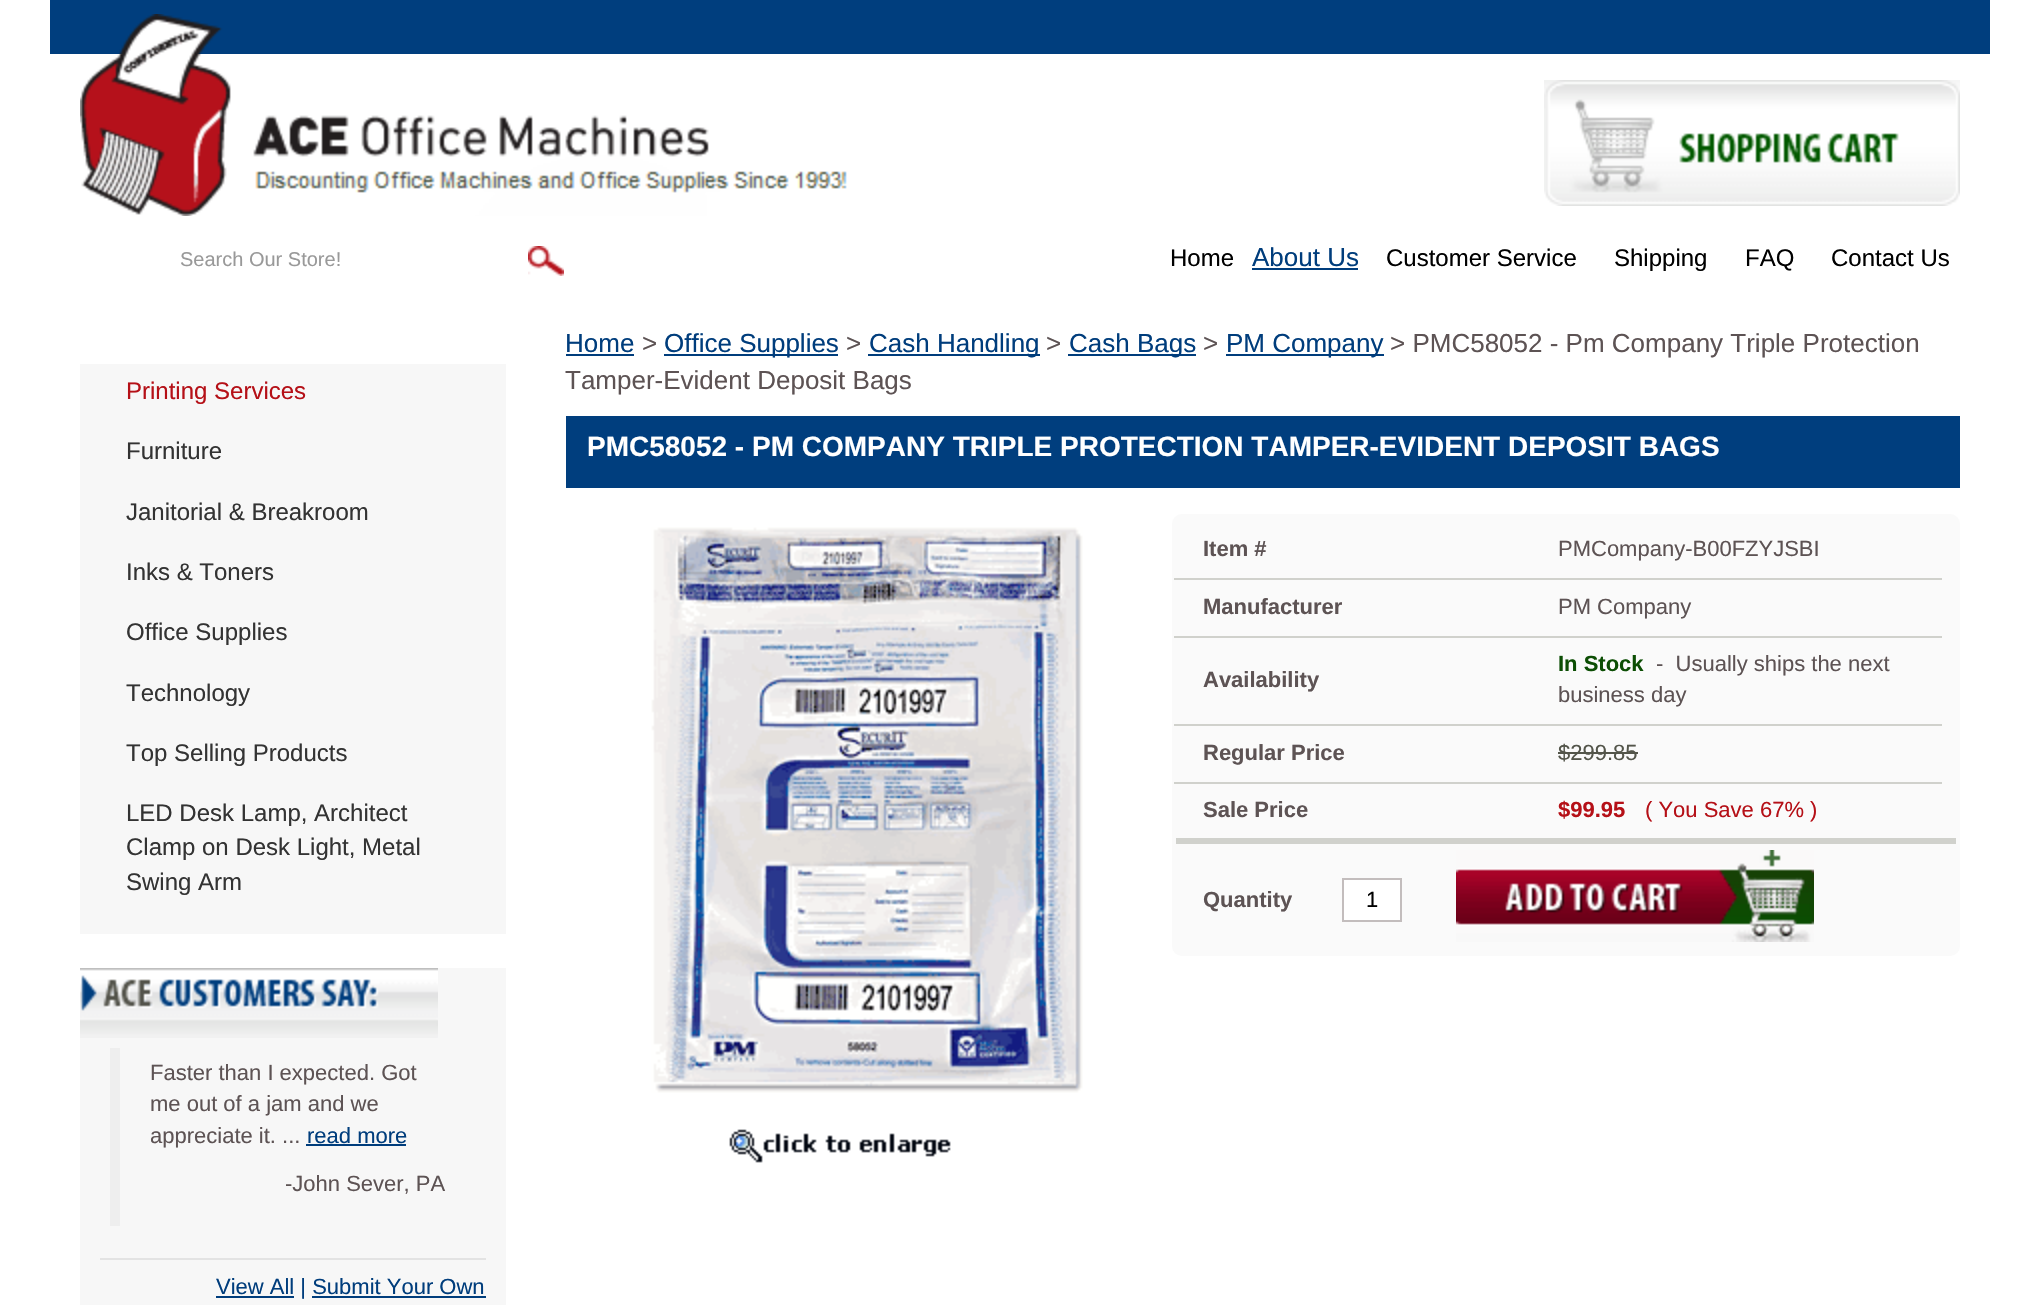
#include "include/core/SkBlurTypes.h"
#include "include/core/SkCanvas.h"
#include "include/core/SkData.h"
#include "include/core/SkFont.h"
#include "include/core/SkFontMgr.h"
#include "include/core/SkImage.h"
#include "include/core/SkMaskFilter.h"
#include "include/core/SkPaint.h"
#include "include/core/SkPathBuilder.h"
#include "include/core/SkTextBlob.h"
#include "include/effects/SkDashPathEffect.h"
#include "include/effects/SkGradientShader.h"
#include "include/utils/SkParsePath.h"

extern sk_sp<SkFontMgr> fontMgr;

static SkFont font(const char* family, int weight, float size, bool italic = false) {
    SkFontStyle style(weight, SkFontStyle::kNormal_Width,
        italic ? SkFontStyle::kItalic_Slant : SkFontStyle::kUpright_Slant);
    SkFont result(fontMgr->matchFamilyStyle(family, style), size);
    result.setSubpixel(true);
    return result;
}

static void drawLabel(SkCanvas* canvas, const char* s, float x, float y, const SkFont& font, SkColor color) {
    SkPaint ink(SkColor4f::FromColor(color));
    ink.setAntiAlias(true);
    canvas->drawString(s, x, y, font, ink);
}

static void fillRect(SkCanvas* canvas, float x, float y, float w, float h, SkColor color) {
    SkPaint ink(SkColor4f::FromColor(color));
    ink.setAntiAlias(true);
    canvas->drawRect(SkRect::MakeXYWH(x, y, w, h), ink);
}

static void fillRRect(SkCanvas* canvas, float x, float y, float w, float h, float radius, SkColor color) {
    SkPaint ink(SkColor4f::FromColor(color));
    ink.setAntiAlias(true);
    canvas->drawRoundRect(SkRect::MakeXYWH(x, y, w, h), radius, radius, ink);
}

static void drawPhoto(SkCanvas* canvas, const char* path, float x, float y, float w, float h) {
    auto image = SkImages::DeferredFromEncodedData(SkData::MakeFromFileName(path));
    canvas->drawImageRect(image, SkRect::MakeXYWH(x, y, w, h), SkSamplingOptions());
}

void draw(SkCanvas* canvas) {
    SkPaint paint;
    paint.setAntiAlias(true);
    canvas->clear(0xFFFFFFFF);
    fillRect(canvas, 50, 0, 1940, 54, 0xFF003E7E);
    drawPhoto(canvas, "assets/img1.png", 80, 14, 767, 202);
    drawPhoto(canvas, "assets/img2.png", 1544, 80, 416, 126);
    SkFont font1 = font("Liberation Sans", 400, 20);
    drawLabel(canvas, "Search Our Store!", 180, 266, font1, 0xFF999999);
    drawPhoto(canvas, "assets/img3.png", 528, 246, 36, 30);
    SkFont font2 = font("Liberation Sans", 400, 24);
    drawLabel(canvas, "Home", 1170, 266, font2, 0xFF000000);
    SkFont font3 = font("Liberation Sans", 400, 26);
    drawLabel(canvas, "About Us", 1252, 266, font3, 0xFF003D7C);
    fillRect(canvas, 1252, 268, 106, 2, 0xFF003D7C);
    drawLabel(canvas, "Customer Service", 1386, 266, font2, 0xFF000000);
    drawLabel(canvas, "Shipping", 1614, 266, font2, 0xFF000000);
    drawLabel(canvas, "FAQ", 1745, 266, font2, 0xFF000000);
    drawLabel(canvas, "Contact Us", 1831, 266, font2, 0xFF000000);
    fillRect(canvas, 80, 364, 426, 570, 0xFFF7F7F7);
    drawLabel(canvas, "Printing Services", 126, 399, font2, 0xFFB51017);
    drawLabel(canvas, "Furniture", 126, 459, font2, 0xFF333333);
    drawLabel(canvas, "Janitorial & Breakroom", 126, 520, font2, 0xFF333333);
    drawLabel(canvas, "Inks & Toners", 126, 580, font2, 0xFF333333);
    drawLabel(canvas, "Office Supplies", 126, 640, font2, 0xFF333333);
    drawLabel(canvas, "Technology", 126, 701, font2, 0xFF333333);
    drawLabel(canvas, "Top Selling Products", 126, 761, font2, 0xFF333333);
    drawLabel(canvas, "LED Desk Lamp, Architect", 126, 821, font2, 0xFF333333);
    drawLabel(canvas, "Clamp on Desk Light, Metal", 126, 855, font2, 0xFF333333);
    drawLabel(canvas, "Swing Arm", 126, 890, font2, 0xFF333333);
    fillRect(canvas, 80, 968, 426, 337, 0xFFF7F7F7);
    drawPhoto(canvas, "assets/img4.png", 80, 968, 358, 70);
    fillRect(canvas, 110, 1048, 10, 178, 0xFFEEEEEE);
    SkFont font4 = font("Liberation Sans", 400, 22);
    drawLabel(canvas, "Faster than I expected. Got", 150, 1080, font4, 0xFF5D5354);
    drawLabel(canvas, "me out of a jam and we", 150, 1111, font4, 0xFF5D5354);
    drawLabel(canvas, "appreciate it. ...", 150, 1143, font4, 0xFF5D5354);
    drawLabel(canvas, "read more", 307, 1143, font4, 0xFF003D7C);
    fillRect(canvas, 306, 1144, 100, 2, 0xFF003D7C);
    drawLabel(canvas, "-John Sever, PA", 285, 1191, font4, 0xFF5D5354);
    fillRect(canvas, 100, 1258, 386, 2, 0xFFE3E3E3);
    fillRect(canvas, 216, 1296, 78, 2, 0xFF003D7C);
    drawLabel(canvas, "View All | Submit Your Own", 216, 1294, font4, 0xFF003D7C);
    fillRect(canvas, 312, 1296, 174, 2, 0xFF003D7C);
    drawLabel(canvas, "Home", 565, 352, font3, 0xFF003D7C);
    fillRect(canvas, 566, 354, 68, 2, 0xFF003D7C);
    drawLabel(canvas, ">", 642, 352, font3, 0xFF5D5354);
    fillRect(canvas, 664, 354, 174, 2, 0xFF003D7C);
    drawLabel(canvas, "Office Supplies", 664, 352, font3, 0xFF003D7C);
    drawLabel(canvas, ">", 846, 352, font3, 0xFF5D5354);
    fillRect(canvas, 868, 354, 172, 2, 0xFF003D7C);
    drawLabel(canvas, "Cash Handling", 869, 352, font3, 0xFF003D7C);
    drawLabel(canvas, ">", 1046, 352, font3, 0xFF5D5354);
    fillRect(canvas, 1068, 354, 128, 2, 0xFF003D7C);
    drawLabel(canvas, "Cash Bags", 1069, 352, font3, 0xFF003D7C);
    drawLabel(canvas, ">", 1203, 352, font3, 0xFF5D5354);
    fillRect(canvas, 1226, 354, 158, 2, 0xFF003D7C);
    drawLabel(canvas, "PM Company", 1226, 352, font3, 0xFF003D7C);
    drawLabel(canvas, "> PMC58052 - Pm Company Triple Protection", 1390, 352, font3, 0xFF5D5354);
    drawLabel(canvas, "Tamper-Evident Deposit Bags", 565, 389, font3, 0xFF5D5354);
    fillRect(canvas, 566, 416, 1394, 72, 0xFF003E7E);
    SkFont font5 = font("Liberation Sans", 700, 28);
    drawLabel(canvas, "PMC58052 - PM COMPANY TRIPLE PROTECTION TAMPER-EVIDENT DEPOSIT BAGS", 587, 456, font5, 0xFFFFFFFF);
    drawPhoto(canvas, "assets/img5.png", 651, 527, 432, 566);
    drawPhoto(canvas, "assets/img6.png", 729, 1129, 222, 34);
    fillRRect(canvas, 1172, 514, 788, 442, 10, 0xFFFAFAFA);
    SkFont font6 = font("Liberation Sans", 700, 22);
    drawLabel(canvas, "Item #", 1203, 556, font6, 0xFF5D5354);
    drawLabel(canvas, "PMCompany-B00FZYJSBI", 1558, 556, font4, 0xFF5D5354);
    drawLabel(canvas, "Manufacturer", 1203, 614, font6, 0xFF5D5354);
    fillRect(canvas, 1174, 578, 768, 2, 0xFFD0D1CC);
    drawLabel(canvas, "PM Company", 1558, 614, font4, 0xFF5D5354);
    drawLabel(canvas, "Availability", 1203, 687, font6, 0xFF5D5354);
    fillRect(canvas, 1174, 636, 768, 2, 0xFFD0D1CC);
    drawLabel(canvas, "In Stock", 1558, 671, font6, 0xFF0C4E04);
    drawLabel(canvas, "-  Usually ships the next", 1656, 671, font4, 0xFF5D5354);
    drawLabel(canvas, "business day", 1558, 702, font4, 0xFF5D5354);
    drawLabel(canvas, "Regular Price", 1203, 760, font6, 0xFF5D5354);
    fillRect(canvas, 1174, 724, 768, 2, 0xFFD0D1CC);
    drawLabel(canvas, "$299.85", 1558, 760, font4, 0xFF53554A);
    fillRect(canvas, 1558, 752, 80, 2, 0xFF53554A);
    drawLabel(canvas, "Sale Price", 1203, 817, font6, 0xFF5D5354);
    fillRect(canvas, 1174, 782, 768, 2, 0xFFD0D1CC);
    drawLabel(canvas, "$99.95", 1558, 817, font6, 0xFFB51017);
    drawLabel(canvas, "( You Save 67% )", 1645, 817, font4, 0xFFB51017);
    fillRect(canvas, 1176, 838, 780, 6, 0xFFD0D1CC);
    drawLabel(canvas, "Quantity", 1203, 907, font6, 0xFF5D5354);
    paint.setColor(0xFFFFFFFF);
    canvas->drawRect(SkRect::MakeXYWH(1343, 879, 58, 42), paint);
    paint.setStroke(true);
    paint.setStrokeWidth(2);
    paint.setColor(0xFFC3BDBD);
    canvas->drawRect(SkRect::MakeXYWH(1343, 879, 58, 42), paint);
    drawLabel(canvas, "1", 1366, 907, font4, 0xFF000000);
    drawPhoto(canvas, "assets/img7.png", 1456, 850, 358, 92);
}
